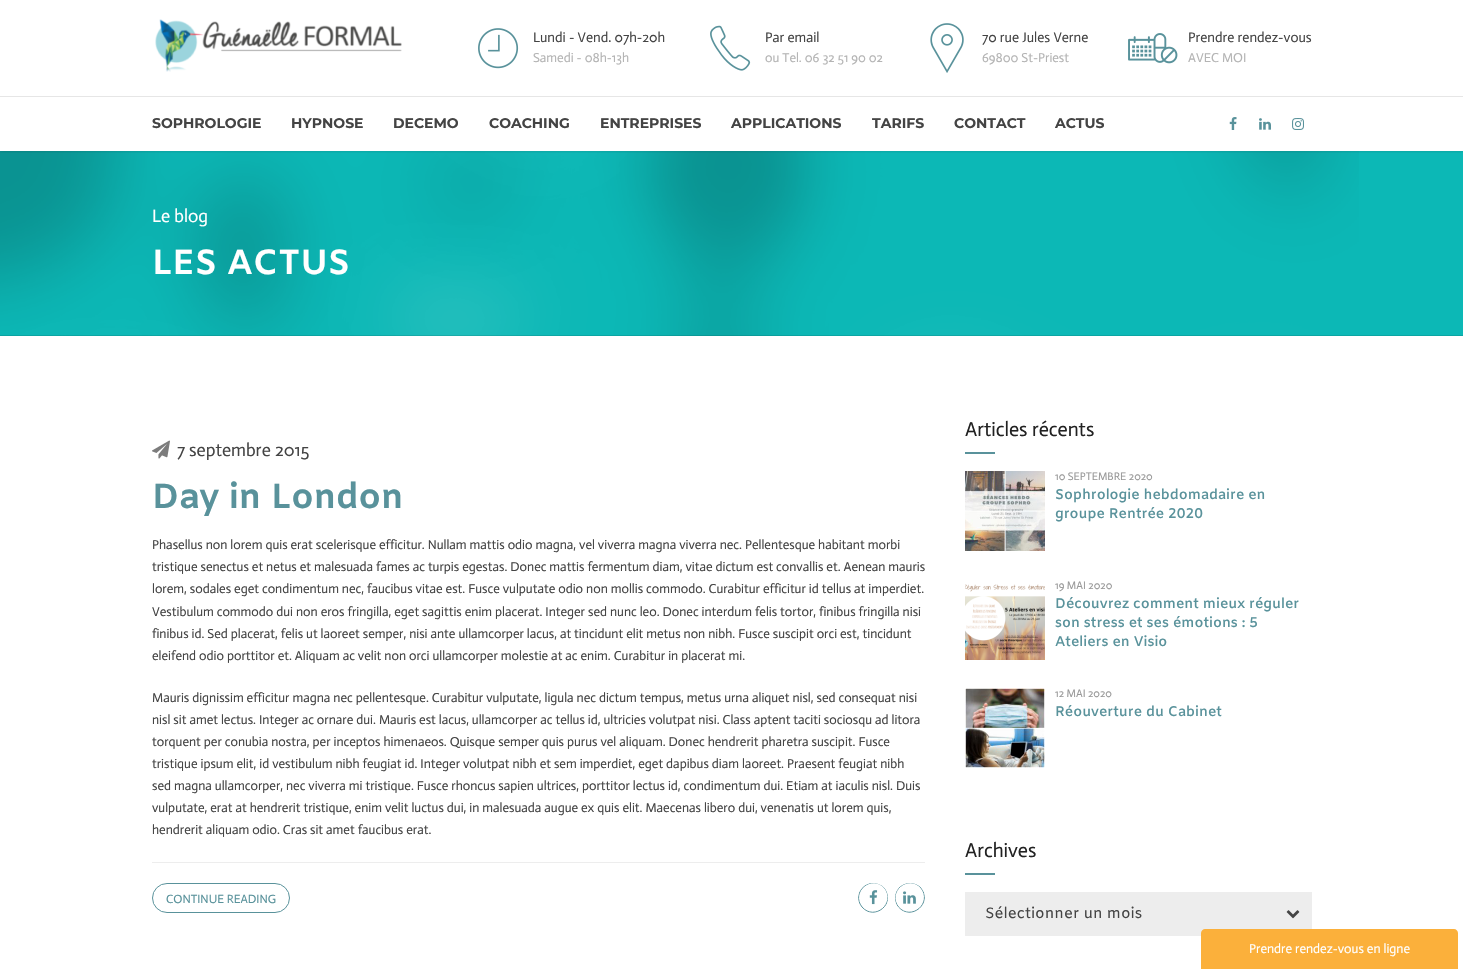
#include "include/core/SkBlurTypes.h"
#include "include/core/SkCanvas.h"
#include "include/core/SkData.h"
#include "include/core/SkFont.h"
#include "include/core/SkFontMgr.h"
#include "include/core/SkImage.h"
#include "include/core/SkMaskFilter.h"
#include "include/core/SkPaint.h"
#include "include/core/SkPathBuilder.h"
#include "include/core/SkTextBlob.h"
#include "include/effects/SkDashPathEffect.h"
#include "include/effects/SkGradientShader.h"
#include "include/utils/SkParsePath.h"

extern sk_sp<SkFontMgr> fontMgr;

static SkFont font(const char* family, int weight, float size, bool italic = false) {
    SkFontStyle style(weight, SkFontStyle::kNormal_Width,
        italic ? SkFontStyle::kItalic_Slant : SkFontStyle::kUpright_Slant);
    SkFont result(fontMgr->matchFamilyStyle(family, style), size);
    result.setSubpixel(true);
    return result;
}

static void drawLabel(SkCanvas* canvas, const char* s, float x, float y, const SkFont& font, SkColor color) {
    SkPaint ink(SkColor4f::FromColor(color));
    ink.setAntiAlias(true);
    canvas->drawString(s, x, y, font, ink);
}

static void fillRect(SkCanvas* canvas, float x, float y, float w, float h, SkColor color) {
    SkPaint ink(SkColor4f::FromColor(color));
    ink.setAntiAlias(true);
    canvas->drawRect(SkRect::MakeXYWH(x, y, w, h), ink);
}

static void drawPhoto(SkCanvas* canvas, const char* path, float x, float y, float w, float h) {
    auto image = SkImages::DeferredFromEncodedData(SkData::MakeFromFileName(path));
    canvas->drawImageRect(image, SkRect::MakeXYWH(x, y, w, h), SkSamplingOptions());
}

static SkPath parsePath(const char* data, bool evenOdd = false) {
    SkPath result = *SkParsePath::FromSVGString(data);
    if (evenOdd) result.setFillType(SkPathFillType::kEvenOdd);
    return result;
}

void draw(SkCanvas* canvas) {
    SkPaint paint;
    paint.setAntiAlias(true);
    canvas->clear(0xFFFFFFFF);
    fillRect(canvas, 0, 151, 1463, 185, 0xFF0CB8B6);
    drawPhoto(canvas, "assets/img9.png", 0, 151, 1359, 185);
    canvas->save();
    canvas->clipRect(SkRect::MakeXYWH(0, 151, 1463, 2));
    paint.setColor(0x1A000000);
    paint.setMaskFilter(SkMaskFilter::MakeBlur(kNormal_SkBlurStyle, 1.5f));
    canvas->drawRect(SkRect::MakeXYWH(0, 1, 1463, 151), paint);
    paint.setMaskFilter(nullptr);
    canvas->restore();
    drawPhoto(canvas, "assets/img1.png", 155, 19, 247, 53);
    drawPhoto(canvas, "assets/img2.png", 478, 28, 41, 41);
    SkFont font1 = font("Actor", 400, 14);
    drawLabel(canvas, "Lundi - Vend. 07h-20h", 533, 42, font1, 0xFF444444);
    SkFont font2 = font("Actor", 400, 13);
    drawLabel(canvas, "Samedi - 08h-13h", 533, 62, font2, 0xFFB4B4B4);
    drawPhoto(canvas, "assets/img3.png", 710, 25, 41, 46);
    drawLabel(canvas, "Par email", 765, 42, font1, 0xFF444444);
    drawLabel(canvas, "ou Tel. 06 32 51 90 02", 765, 62, font2, 0xFFB4B4B4);
    drawPhoto(canvas, "assets/img4.png", 930, 23, 34, 50);
    drawLabel(canvas, "70 rue Jules Verne", 982, 42, font1, 0xFF444444);
    drawLabel(canvas, "69800 St-Priest", 982, 62, font2, 0xFFB4B4B4);
    drawPhoto(canvas, "assets/img5.png", 1128, 33, 50, 31);
    drawLabel(canvas, "Prendre rendez-vous", 1188, 42, font1, 0xFF444444);
    drawLabel(canvas, "AVEC MOI", 1188, 62, font2, 0xFFB4B4B4);
    fillRect(canvas, 0, 96, 1463, 1, 0xFFE6E6E6);
    SkFont font3 = font("Montserrat", 700, 14);
    drawLabel(canvas, "SOPHROLOGIE", 152, 128, font3, 0xFF444444);
    drawLabel(canvas, "HYPNOSE", 291, 128, font3, 0xFF444444);
    drawLabel(canvas, "DECEMO", 393, 128, font3, 0xFF444444);
    drawLabel(canvas, "COACHING", 489, 128, font3, 0xFF444444);
    drawLabel(canvas, "ENTREPRISES", 600, 128, font3, 0xFF444444);
    drawLabel(canvas, "APPLICATIONS", 731, 128, font3, 0xFF444444);
    drawLabel(canvas, "TARIFS", 872, 128, font3, 0xFF444444);
    drawLabel(canvas, "CONTACT", 954, 128, font3, 0xFF444444);
    drawLabel(canvas, "ACTUS", 1055, 128, font3, 0xFF444444);
    drawPhoto(canvas, "assets/img6.png", 1229, 117, 8, 13);
    drawPhoto(canvas, "assets/img7.png", 1259, 118, 12, 12);
    drawPhoto(canvas, "assets/img8.png", 1292, 118, 12, 12);
    fillRect(canvas, 0, 335, 1463, 1, 0x1A000000);
    SkFont font4 = font("Actor", 400, 18);
    drawLabel(canvas, "Le blog", 152, 222, font4, 0xFFFFFFFF);
    SkFont font5 = font("Amiko", 700, 35);
    drawLabel(canvas, "LES ACTUS", 152, 274, font5, 0xFFFFFFFF);
    drawPhoto(canvas, "assets/img10.png", 152, 440, 18, 19);
    drawLabel(canvas, "7 septembre 2015", 177, 456, font4, 0xFF444444);
    drawLabel(canvas, "Day in London", 152, 508, font5, 0xFF59929B);
    drawLabel(canvas, "Phasellus non lorem quis erat scelerisque efficitur. Nullam mattis odio magna, vel viverra magna viverra nec. Pellentesque habitant morbi", 152, 549, font2, 0xFF444444);
    drawLabel(canvas, "tristique senectus et netus et malesuada fames ac turpis egestas. Donec mattis fermentum diam, vitae dictum est convallis et. Aenean mauris", 152, 571, font2, 0xFF444444);
    drawLabel(canvas, "lorem, sodales eget condimentum nec, faucibus vitae est. Fusce vulputate odio non mollis commodo. Curabitur efficitur id tellus at imperdiet.", 152, 593, font2, 0xFF444444);
    drawLabel(canvas, "Vestibulum commodo dui non eros fringilla, eget sagittis enim placerat. Integer sed nunc leo. Donec interdum felis tortor, finibus fringilla nisi", 152, 616, font2, 0xFF444444);
    drawLabel(canvas, "finibus id. Sed placerat, felis ut laoreet semper, nisi ante ullamcorper lacus, at tincidunt elit metus non nibh. Fusce suscipit orci est, tincidunt", 152, 638, font2, 0xFF444444);
    drawLabel(canvas, "eleifend odio porttitor et. Aliquam ac velit non orci ullamcorper molestie at ac enim. Curabitur in placerat mi.", 152, 660, font2, 0xFF444444);
    drawLabel(canvas, "Mauris dignissim efficitur magna nec pellentesque. Curabitur vulputate, ligula nec dictum tempus, metus urna aliquet nisl, sed consequat nisi", 152, 702, font2, 0xFF444444);
    drawLabel(canvas, "nisl sit amet lectus. Integer ac ornare dui. Mauris est lacus, ullamcorper ac tellus id, ultricies volutpat nisi. Class aptent taciti sociosqu ad litora", 152, 724, font2, 0xFF444444);
    drawLabel(canvas, "torquent per conubia nostra, per inceptos himenaeos. Quisque semper quis purus vel aliquam. Donec hendrerit pharetra suscipit. Fusce", 152, 746, font2, 0xFF444444);
    drawLabel(canvas, "tristique ipsum elit, id vestibulum nibh feugiat id. Integer volutpat nibh et sem imperdiet, eget dapibus diam laoreet. Praesent feugiat nibh", 152, 768, font2, 0xFF444444);
    drawLabel(canvas, "sed magna ullamcorper, nec viverra mi tristique. Fusce rhoncus sapien ultrices, porttitor lectus id, condimentum dui. Etiam at iaculis nisl. Duis", 152, 790, font2, 0xFF444444);
    drawLabel(canvas, "vulputate, erat at hendrerit tristique, enim velit luctus dui, in malesuada augue ex quis elit. Maecenas libero dui, venenatis ut lorem quis,", 152, 812, font2, 0xFF444444);
    drawLabel(canvas, "hendrerit aliquam odio. Cras sit amet faucibus erat.", 152, 834, font2, 0xFF444444);
    fillRect(canvas, 152, 862, 773, 1, 0xFFEDEDED);
    paint.setStroke(true);
    paint.setStrokeWidth(1);
    paint.setColor(0xFF59929B);
    canvas->drawRoundRect(SkRect::MakeXYWH(152.5f, 883.5f, 137, 29), 14.5f, 14.5f, paint);
    SkFont font6 = font("Actor", 400, 12);
    drawLabel(canvas, "CONTINUE READING", 166, 903, font6, 0xFF59929B);
    canvas->save();
    canvas->clipPath(parsePath("M873 883C881.5 883 888 889.5 888 898C888 906.5 881.5 913 873 913C864.5 913 858 906.5 858 898C858 889.5 864.5 883 873 883Z"), true);
    canvas->drawPath(parsePath("M884.5 888C896.5 903 874.5 921.5 862 907C850 892 872 873.5 884.5 888Z"), paint);
    canvas->restore();
    drawPhoto(canvas, "assets/img11.png", 869, 890, 9, 15);
    canvas->save();
    canvas->clipPath(parsePath("M910 883C918.5 883 925 889.5 925 898C925 906.5 918.5 913 910 913C901.5 913 895 906.5 895 898C895 889.5 901.5 883 910 883Z"), true);
    canvas->drawPath(parsePath("M921 888C933 903 911 921.5 898.5 907C886.5 892 908.5 873.5 921 888Z"), paint);
    canvas->restore();
    drawPhoto(canvas, "assets/img12.png", 903, 891, 13, 13);
    SkFont font7 = font("Actor", 400, 20);
    drawLabel(canvas, "Articles récents", 965, 436, font7, 0xFF222222);
    fillRect(canvas, 965, 452, 30, 2, 0xFF59929B);
    drawPhoto(canvas, "assets/img13.png", 965, 471, 80, 80);
    SkFont font8 = font("Actor", 400, 11);
    drawLabel(canvas, "10 SEPTEMBRE 2020", 1055, 480, font8, 0xFF989898);
    SkFont font9 = font("Amiko", 600, 14);
    drawLabel(canvas, "Sophrologie hebdomadaire en", 1055, 499, font9, 0xFF59929B);
    drawLabel(canvas, "groupe Rentrée 2020", 1055, 518, font9, 0xFF59929B);
    drawPhoto(canvas, "assets/img14.png", 965, 584, 80, 76);
    drawLabel(canvas, "19 MAI 2020", 1055, 589, font8, 0xFF989898);
    drawLabel(canvas, "Découvrez comment mieux réguler", 1055, 608, font9, 0xFF59929B);
    drawLabel(canvas, "son stress et ses émotions : 5", 1055, 627, font9, 0xFF59929B);
    drawLabel(canvas, "Ateliers en Visio", 1055, 646, font9, 0xFF59929B);
    drawPhoto(canvas, "assets/img15.png", 965, 688, 80, 80);
    drawLabel(canvas, "12 MAI 2020", 1055, 697, font8, 0xFF989898);
    drawLabel(canvas, "Réouverture du Cabinet", 1055, 716, font9, 0xFF59929B);
    drawLabel(canvas, "Archives", 965, 857, font7, 0xFF222222);
    fillRect(canvas, 965, 873, 30, 2, 0xFF59929B);
    fillRect(canvas, 965, 892, 347, 44, 0xFFEDEDED);
    SkFont font10 = font("Amiko", 400, 15);
    drawLabel(canvas, "Sélectionner un mois", 985, 918, font10, 0xFF444444);
    drawPhoto(canvas, "assets/img16.png", 1286, 910, 14, 9);
    paint.setStroke(false);
    paint.setColor(0xFFFBB03B);
    canvas->drawPath(parsePath("M1205 929H1454C1456 929 1458 931 1458 933V969H1201V933C1201 931 1203 929 1205 929Z"), paint);
    drawLabel(canvas, "Prendre rendez-vous en ligne", 1249, 953, font2, 0xFFFFFFFF);
}
